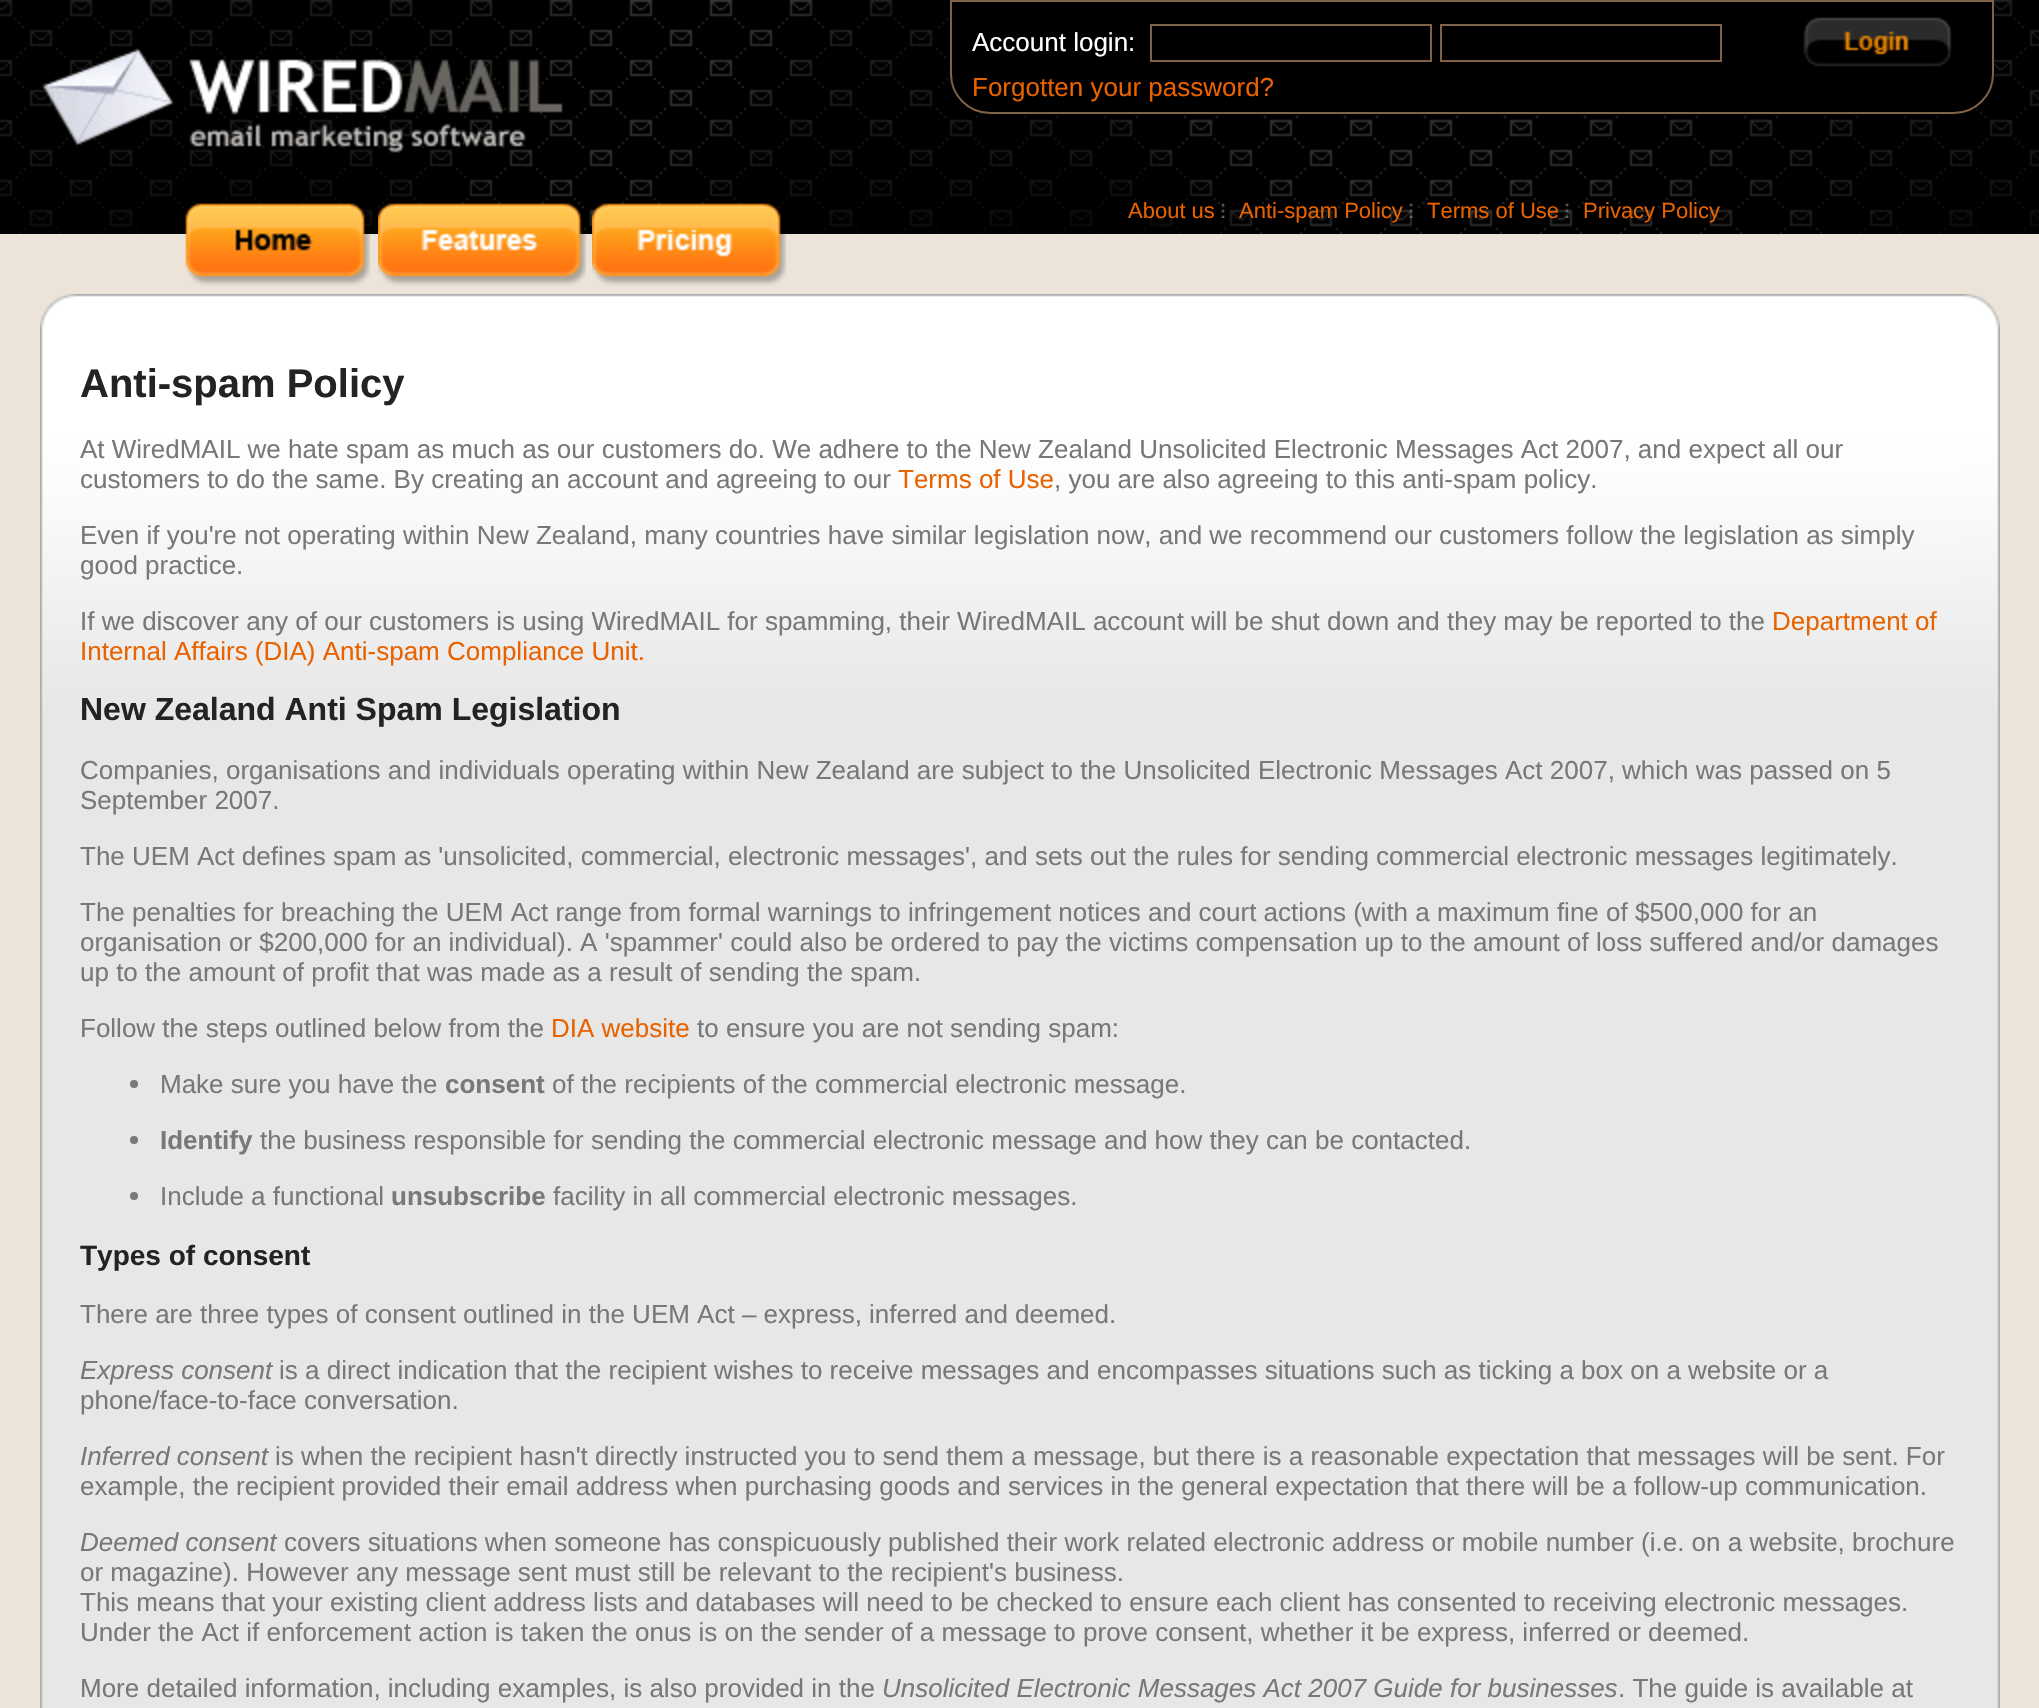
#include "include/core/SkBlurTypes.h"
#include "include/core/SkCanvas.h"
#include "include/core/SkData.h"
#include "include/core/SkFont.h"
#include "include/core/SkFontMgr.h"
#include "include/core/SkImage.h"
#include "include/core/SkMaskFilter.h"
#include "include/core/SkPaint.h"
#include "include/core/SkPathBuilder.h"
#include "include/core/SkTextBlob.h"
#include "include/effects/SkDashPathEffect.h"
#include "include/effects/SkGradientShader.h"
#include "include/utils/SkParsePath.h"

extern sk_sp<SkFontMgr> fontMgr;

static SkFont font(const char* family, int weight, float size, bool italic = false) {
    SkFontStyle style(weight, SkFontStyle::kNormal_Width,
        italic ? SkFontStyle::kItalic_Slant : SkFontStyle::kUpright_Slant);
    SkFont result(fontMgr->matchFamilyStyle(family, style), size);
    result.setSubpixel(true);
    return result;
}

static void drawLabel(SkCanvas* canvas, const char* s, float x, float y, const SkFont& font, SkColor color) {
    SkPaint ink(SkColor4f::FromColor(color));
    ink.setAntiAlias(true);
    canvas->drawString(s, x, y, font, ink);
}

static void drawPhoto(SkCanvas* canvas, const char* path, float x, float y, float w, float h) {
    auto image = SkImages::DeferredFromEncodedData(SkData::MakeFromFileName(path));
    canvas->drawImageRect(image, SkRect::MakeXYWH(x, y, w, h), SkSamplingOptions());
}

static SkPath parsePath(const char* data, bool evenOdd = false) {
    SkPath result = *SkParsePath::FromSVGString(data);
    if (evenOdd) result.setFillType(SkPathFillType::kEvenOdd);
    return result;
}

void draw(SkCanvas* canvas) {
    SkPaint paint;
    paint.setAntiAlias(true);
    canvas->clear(0xFFECE4D9);
    drawPhoto(canvas, "assets/img1.png", 0, 0, 2039, 234);
    drawPhoto(canvas, "assets/img2.png", 41, 49, 522, 104);
    paint.setColor(0xFF000000);
    canvas->drawPath(parsePath("M951 1H1993V74C1993 95.5 1975.5 113 1954 113H990C968.5 113 951 95.5 951 74Z"), paint);
    paint.setStroke(true);
    paint.setStrokeWidth(2);
    paint.setColor(0xFF806246);
    canvas->drawPath(parsePath("M951 1H1993V74C1993 95.5 1975.5 113 1954 113H990C968.5 113 951 95.5 951 74Z"), paint);
    SkFont font1 = font("Liberation Sans", 400, 26);
    drawLabel(canvas, "Account login:", 972, 51, font1, 0xFFFFFFFF);
    canvas->drawRect(SkRect::MakeXYWH(1151, 25, 280, 36), paint);
    canvas->drawRect(SkRect::MakeXYWH(1441, 25, 280, 36), paint);
    drawPhoto(canvas, "assets/img3.png", 1803, 17, 149, 50);
    drawLabel(canvas, "Forgotten your password?", 972, 96, font1, 0xFFE86200);
    drawPhoto(canvas, "assets/img4.png", 185, 203, 185, 83);
    drawPhoto(canvas, "assets/img5.png", 378, 203, 208, 83);
    drawPhoto(canvas, "assets/img6.png", 592, 203, 194, 83);
    SkFont font2 = font("Liberation Sans", 400, 22);
    drawLabel(canvas, "About us", 1128, 218, font2, 0xFFE86200);
    drawPhoto(canvas, "assets/img7.png", 1221, 203, 4, 15);
    drawLabel(canvas, "Anti-spam Policy", 1239, 218, font2, 0xFFE86200);
    drawPhoto(canvas, "assets/img8.png", 1409, 203, 4, 15);
    drawLabel(canvas, "Terms of Use", 1427, 218, font2, 0xFFE86200);
    drawPhoto(canvas, "assets/img9.png", 1565, 203, 4, 15);
    drawLabel(canvas, "Privacy Policy", 1583, 218, font2, 0xFFE86200);
    drawPhoto(canvas, "assets/img10.png", 40, 294, 40, 40);
    drawPhoto(canvas, "assets/img11.png", 80, 294, 1880, 40);
    drawPhoto(canvas, "assets/img12.png", 1960, 294, 40, 40);
    drawPhoto(canvas, "assets/img13.png", 40, 334, 40, 1374);
    drawPhoto(canvas, "assets/img14.png", 80, 334, 1880, 1374);
    SkFont font3 = font("Liberation Sans", 700, 40);
    drawLabel(canvas, "Anti-spam Policy", 80, 397, font3, 0xFF232324);
    drawLabel(canvas, "At WiredMAIL we hate spam as much as our customers do. We adhere to the New Zealand Unsolicited Electronic Messages Act 2007, and expect all our", 80, 458, font1, 0xFF787878);
    drawLabel(canvas, "customers to do the same. By creating an account and agreeing to our", 80, 488, font1, 0xFF787878);
    drawLabel(canvas, "Terms of Use", 898, 488, font1, 0xFFE86200);
    drawLabel(canvas, ", you are also agreeing to this anti-spam policy.", 1054, 488, font1, 0xFF787878);
    drawLabel(canvas, "Even if you're not operating within New Zealand, many countries have similar legislation now, and we recommend our customers follow the legislation as simply", 80, 544, font1, 0xFF787878);
    drawLabel(canvas, "good practice.", 80, 574, font1, 0xFF787878);
    drawLabel(canvas, "If we discover any of our customers is using WiredMAIL for spamming, their WiredMAIL account will be shut down and they may be reported to the", 80, 630, font1, 0xFF787878);
    drawLabel(canvas, "Department of", 1772, 630, font1, 0xFFE86200);
    drawLabel(canvas, "Internal Affairs (DIA) Anti-spam Compliance Unit.", 80, 660, font1, 0xFFE86200);
    SkFont font4 = font("Liberation Sans", 700, 32);
    drawLabel(canvas, "New Zealand Anti Spam Legislation", 80, 720, font4, 0xFF232324);
    drawLabel(canvas, "Companies, organisations and individuals operating within New Zealand are subject to the Unsolicited Electronic Messages Act 2007, which was passed on 5", 80, 779, font1, 0xFF787878);
    drawLabel(canvas, "September 2007.", 80, 809, font1, 0xFF787878);
    drawLabel(canvas, "The UEM Act defines spam as 'unsolicited, commercial, electronic messages', and sets out the rules for sending commercial electronic messages legitimately.", 80, 865, font1, 0xFF787878);
    drawLabel(canvas, "The penalties for breaching the UEM Act range from formal warnings to infringement notices and court actions (with a maximum fine of $500,000 for an", 80, 921, font1, 0xFF787878);
    drawLabel(canvas, "organisation or $200,000 for an individual). A 'spammer' could also be ordered to pay the victims compensation up to the amount of loss suffered and/or damages", 80, 951, font1, 0xFF787878);
    drawLabel(canvas, "up to the amount of profit that was made as a result of sending the spam.", 80, 981, font1, 0xFF787878);
    drawLabel(canvas, "Follow the steps outlined below from the", 80, 1037, font1, 0xFF787878);
    drawLabel(canvas, "DIA website", 551, 1037, font1, 0xFFE86200);
    drawLabel(canvas, "to ensure you are not sending spam:", 697, 1037, font1, 0xFF787878);
    paint.setStroke(false);
    paint.setColor(0xFF787878);
    canvas->drawCircle(134, 1084, 4, paint);
    drawLabel(canvas, "Make sure you have the", 160, 1093, font1, 0xFF787878);
    SkFont font5 = font("Liberation Sans", 700, 26);
    drawLabel(canvas, "consent", 445, 1093, font5, 0xFF787878);
    drawLabel(canvas, "of the recipients of the commercial electronic message.", 552, 1093, font1, 0xFF787878);
    canvas->drawCircle(134, 1140, 4, paint);
    drawLabel(canvas, "Identify", 160, 1149, font5, 0xFF787878);
    drawLabel(canvas, "the business responsible for sending the commercial electronic message and how they can be contacted.", 260, 1149, font1, 0xFF787878);
    canvas->drawCircle(134, 1196, 4, paint);
    drawLabel(canvas, "Include a functional", 160, 1205, font1, 0xFF787878);
    drawLabel(canvas, "unsubscribe", 391, 1205, font5, 0xFF787878);
    drawLabel(canvas, "facility in all commercial electronic messages.", 553, 1205, font1, 0xFF787878);
    SkFont font6 = font("Liberation Sans", 700, 28);
    drawLabel(canvas, "Types of consent", 80, 1265, font6, 0xFF232324);
    drawLabel(canvas, "There are three types of consent outlined in the UEM Act – express, inferred and deemed.", 80, 1323, font1, 0xFF787878);
    SkFont font7 = font("Liberation Sans", 400, 26, true);
    drawLabel(canvas, "Express consent", 80, 1379, font7, 0xFF787878);
    drawLabel(canvas, "is a direct indication that the recipient wishes to receive messages and encompasses situations such as ticking a box on a website or a", 279, 1379, font1, 0xFF787878);
    drawLabel(canvas, "phone/face-to-face conversation.", 80, 1409, font1, 0xFF787878);
    drawLabel(canvas, "Inferred consent", 80, 1465, font7, 0xFF787878);
    drawLabel(canvas, "is when the recipient hasn't directly instructed you to send them a message, but there is a reasonable expectation that messages will be sent. For", 275, 1465, font1, 0xFF787878);
    drawLabel(canvas, "example, the recipient provided their email address when purchasing goods and services in the general expectation that there will be a follow-up communication.", 80, 1495, font1, 0xFF787878);
    drawLabel(canvas, "Deemed consent", 80, 1551, font7, 0xFF787878);
    drawLabel(canvas, "covers situations when someone has conspicuously published their work related electronic address or mobile number (i.e. on a website, brochure", 284, 1551, font1, 0xFF787878);
    drawLabel(canvas, "or magazine). However any message sent must still be relevant to the recipient's business.", 80, 1581, font1, 0xFF787878);
    drawLabel(canvas, "This means that your existing client address lists and databases will need to be checked to ensure each client has consented to receiving electronic messages.", 80, 1611, font1, 0xFF787878);
    drawLabel(canvas, "Under the Act if enforcement action is taken the onus is on the sender of a message to prove consent, whether it be express, inferred or deemed.", 80, 1641, font1, 0xFF787878);
    drawLabel(canvas, "More detailed information, including examples, is also provided in the", 80, 1697, font1, 0xFF787878);
    drawLabel(canvas, "Unsolicited Electronic Messages Act 2007 Guide for businesses", 882, 1697, font7, 0xFF787878);
    drawLabel(canvas, ". The guide is available at", 1618, 1697, font1, 0xFF787878);
    drawPhoto(canvas, "assets/img15.png", 1960, 334, 40, 1374);
}
